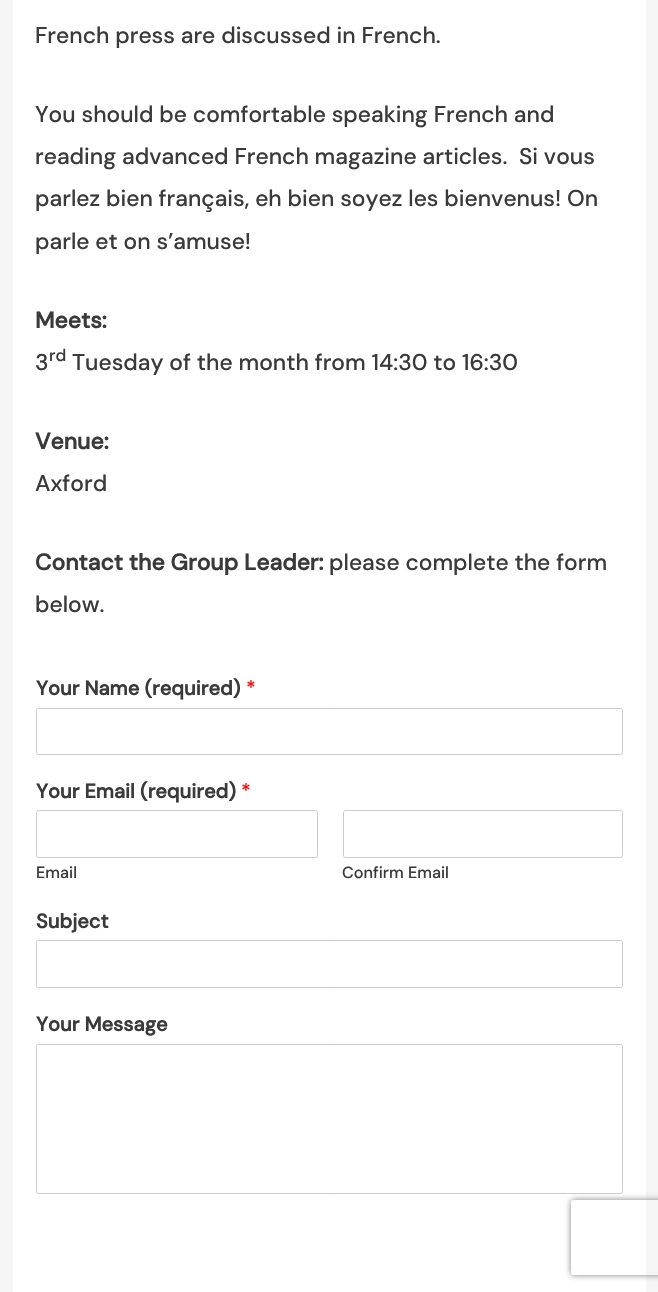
#include "include/core/SkBlurTypes.h"
#include "include/core/SkCanvas.h"
#include "include/core/SkData.h"
#include "include/core/SkFont.h"
#include "include/core/SkFontMgr.h"
#include "include/core/SkImage.h"
#include "include/core/SkMaskFilter.h"
#include "include/core/SkPaint.h"
#include "include/core/SkPathBuilder.h"
#include "include/core/SkTextBlob.h"
#include "include/effects/SkDashPathEffect.h"
#include "include/effects/SkGradientShader.h"
#include "include/utils/SkParsePath.h"

extern sk_sp<SkFontMgr> fontMgr;

static SkFont font(const char* family, int weight, float size, bool italic = false) {
    SkFontStyle style(weight, SkFontStyle::kNormal_Width,
        italic ? SkFontStyle::kItalic_Slant : SkFontStyle::kUpright_Slant);
    SkFont result(fontMgr->matchFamilyStyle(family, style), size);
    result.setSubpixel(true);
    return result;
}

static void drawLabel(SkCanvas* canvas, const char* s, float x, float y, const SkFont& font, SkColor color) {
    SkPaint ink(SkColor4f::FromColor(color));
    ink.setAntiAlias(true);
    canvas->drawString(s, x, y, font, ink);
}

static void fillRect(SkCanvas* canvas, float x, float y, float w, float h, SkColor color) {
    SkPaint ink(SkColor4f::FromColor(color));
    ink.setAntiAlias(true);
    canvas->drawRect(SkRect::MakeXYWH(x, y, w, h), ink);
}

static SkPath parsePath(const char* data, bool evenOdd = false) {
    SkPath result = *SkParsePath::FromSVGString(data);
    if (evenOdd) result.setFillType(SkPathFillType::kEvenOdd);
    return result;
}

void draw(SkCanvas* canvas) {
    SkPaint paint;
    paint.setAntiAlias(true);
    canvas->clear(0xFFF5F5F5);
    fillRect(canvas, 13, 0, 633, 1292, 0xFFFFFFFF);
    SkFont font1 = font("DM Sans", 500, 22.8f);
    drawLabel(canvas, "French press are discussed in French.", 35, 43, font1, 0xFF3A3A3A);
    drawLabel(canvas, "You should be comfortable speaking French and", 35, 122, font1, 0xFF3A3A3A);
    drawLabel(canvas, "reading advanced French magazine articles.  Si vous", 35, 164, font1, 0xFF3A3A3A);
    drawLabel(canvas, "parlez bien français, eh bien soyez les bienvenus! On", 35, 206, font1, 0xFF3A3A3A);
    drawLabel(canvas, "parle et on s’amuse!", 35, 249, font1, 0xFF3A3A3A);
    SkFont font2 = font("DM Sans", 700, 22.8f);
    drawLabel(canvas, "Meets:", 35, 328, font2, 0xFF3A3A3A);
    drawLabel(canvas, "3", 35, 370, font1, 0xFF3A3A3A);
    SkFont font3 = font("DM Sans", 500, 17);
    drawLabel(canvas, "rd", 49, 361, font3, 0xFF3A3A3A);
    drawLabel(canvas, "Tuesday of the month from 14:30 to 16:30", 72, 370, font1, 0xFF3A3A3A);
    drawLabel(canvas, "Venue:", 35, 449, font2, 0xFF3A3A3A);
    drawLabel(canvas, "Axford", 35, 491, font1, 0xFF3A3A3A);
    drawLabel(canvas, "Contact the Group Leader:", 35, 570, font2, 0xFF3A3A3A);
    drawLabel(canvas, "please complete the form", 329, 570, font1, 0xFF3A3A3A);
    drawLabel(canvas, "below.", 35, 612, font1, 0xFF3A3A3A);
    SkFont font4 = font("DM Sans", 700, 20);
    drawLabel(canvas, "Your Name (required)", 36, 695, font4, 0xFF3A3A3A);
    SkFont font5 = font("DM Sans", 500, 20);
    drawLabel(canvas, "*", 246, 695, font5, 0xFFFF0000);
    paint.setStroke(true);
    paint.setStrokeWidth(1);
    paint.setColor(0xFFCCCCCC);
    canvas->drawRoundRect(SkRect::MakeXYWH(36.5f, 708.5f, 586, 46), 2, 2, paint);
    drawLabel(canvas, "Your Email (required)", 36, 798, font4, 0xFF3A3A3A);
    drawLabel(canvas, "*", 241, 798, font5, 0xFFFF0000);
    canvas->drawRoundRect(SkRect::MakeXYWH(36.5f, 810.5f, 281, 47), 2, 2, paint);
    SkFont font6 = font("DM Sans", 500, 16.25f);
    drawLabel(canvas, "Email", 36, 878, font6, 0xFF3A3A3A);
    canvas->drawRoundRect(SkRect::MakeXYWH(343.5f, 810.5f, 279, 47), 2, 2, paint);
    drawLabel(canvas, "Confirm Email", 342, 878, font6, 0xFF3A3A3A);
    drawLabel(canvas, "Subject", 36, 928, font4, 0xFF3A3A3A);
    canvas->drawRoundRect(SkRect::MakeXYWH(36.5f, 940.5f, 586, 47), 2, 2, paint);
    drawLabel(canvas, "Your Message", 36, 1031, font4, 0xFF3A3A3A);
    canvas->drawRoundRect(SkRect::MakeXYWH(36.5f, 1044.5f, 586, 149), 2, 2, paint);
    canvas->save();
    canvas->clipPath(parsePath("M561 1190H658V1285H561ZM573.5 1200H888.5C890 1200 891 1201 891 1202.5V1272.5C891 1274 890 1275 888.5 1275H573.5C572 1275 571 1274 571 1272.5V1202.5C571 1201 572 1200 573.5 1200Z", true), true);
    paint.setStroke(false);
    paint.setColor(0xFF808080);
    paint.setMaskFilter(SkMaskFilter::MakeBlur(kNormal_SkBlurStyle, 3));
    canvas->drawRoundRect(SkRect::MakeXYWH(571, 1200, 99, 75), 2.5f, 2.5f, paint);
    paint.setMaskFilter(nullptr);
    canvas->restore();
}
